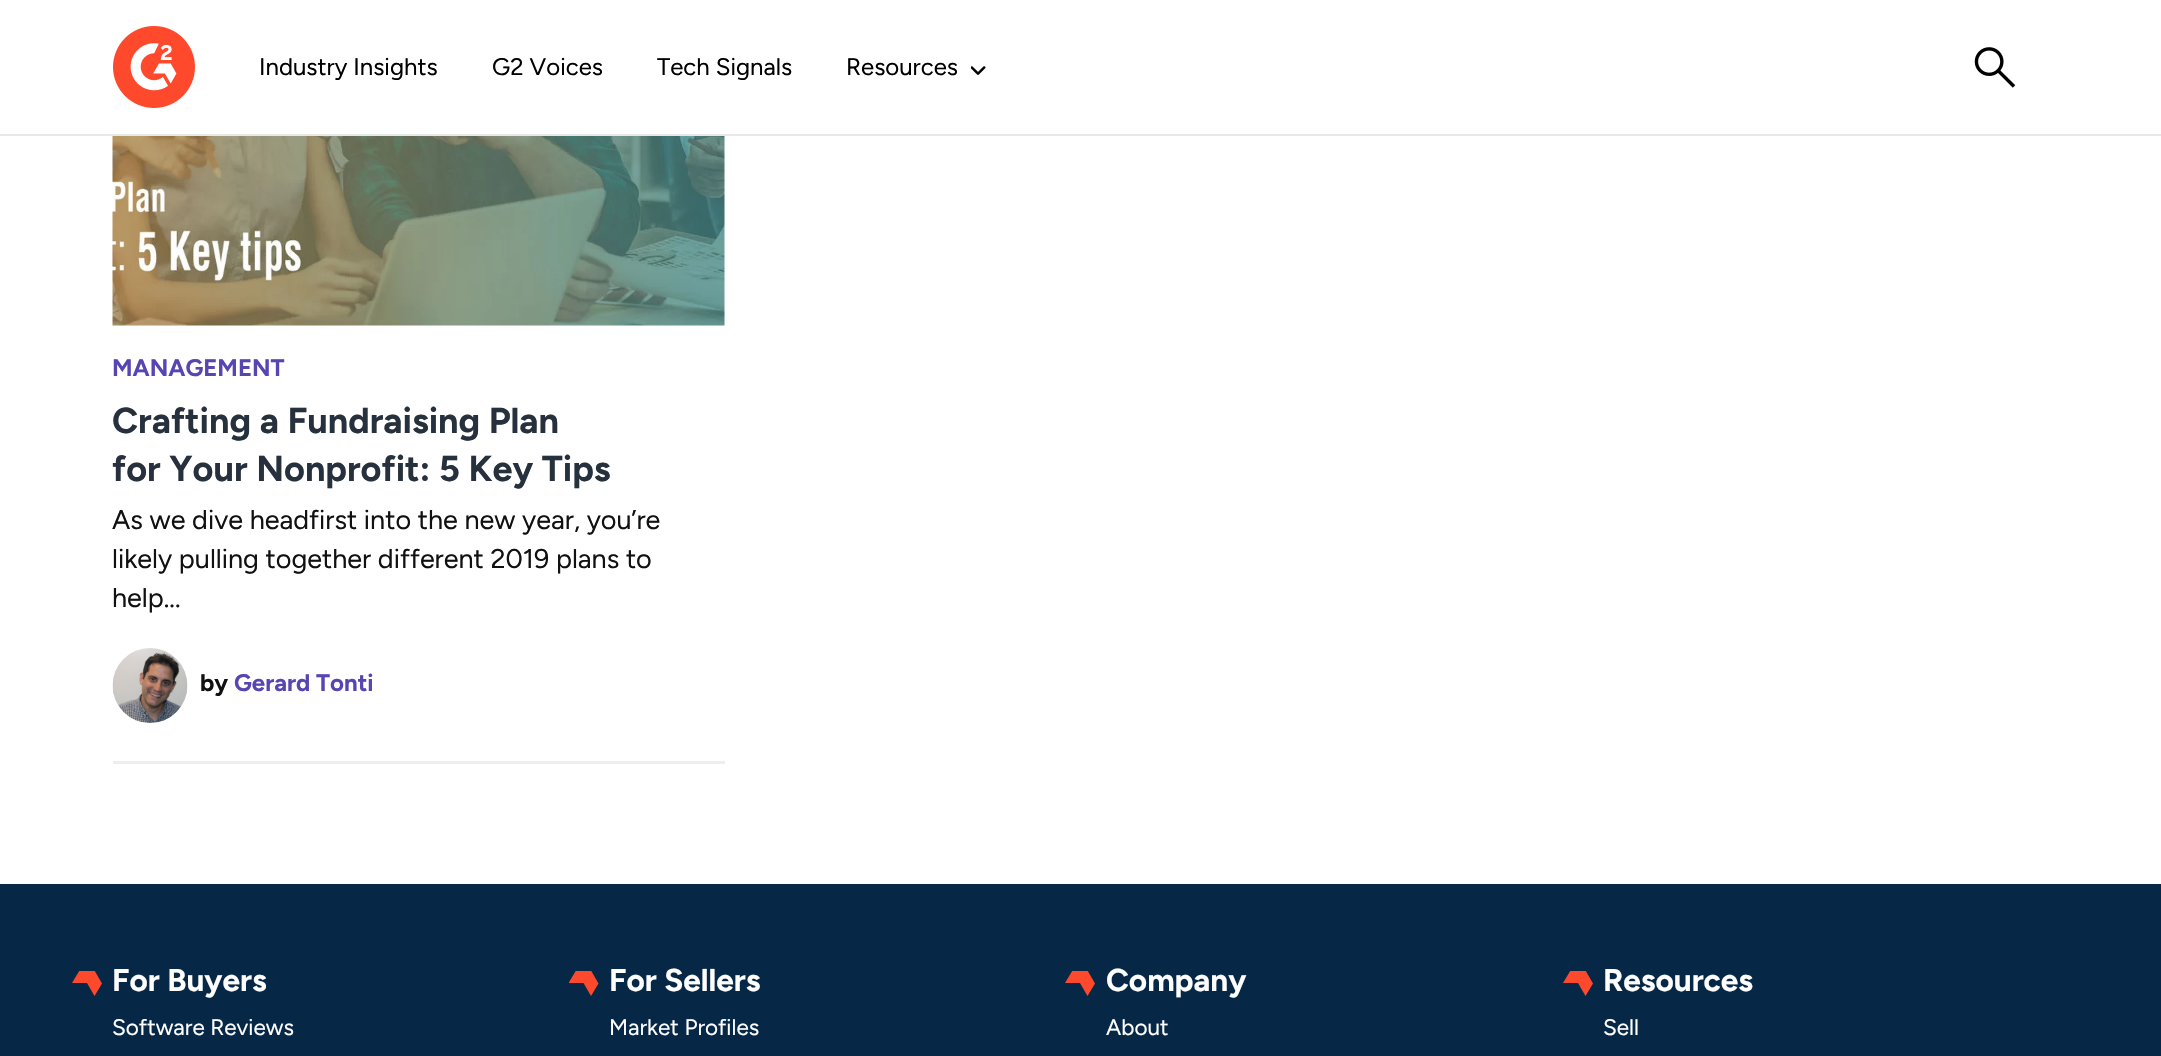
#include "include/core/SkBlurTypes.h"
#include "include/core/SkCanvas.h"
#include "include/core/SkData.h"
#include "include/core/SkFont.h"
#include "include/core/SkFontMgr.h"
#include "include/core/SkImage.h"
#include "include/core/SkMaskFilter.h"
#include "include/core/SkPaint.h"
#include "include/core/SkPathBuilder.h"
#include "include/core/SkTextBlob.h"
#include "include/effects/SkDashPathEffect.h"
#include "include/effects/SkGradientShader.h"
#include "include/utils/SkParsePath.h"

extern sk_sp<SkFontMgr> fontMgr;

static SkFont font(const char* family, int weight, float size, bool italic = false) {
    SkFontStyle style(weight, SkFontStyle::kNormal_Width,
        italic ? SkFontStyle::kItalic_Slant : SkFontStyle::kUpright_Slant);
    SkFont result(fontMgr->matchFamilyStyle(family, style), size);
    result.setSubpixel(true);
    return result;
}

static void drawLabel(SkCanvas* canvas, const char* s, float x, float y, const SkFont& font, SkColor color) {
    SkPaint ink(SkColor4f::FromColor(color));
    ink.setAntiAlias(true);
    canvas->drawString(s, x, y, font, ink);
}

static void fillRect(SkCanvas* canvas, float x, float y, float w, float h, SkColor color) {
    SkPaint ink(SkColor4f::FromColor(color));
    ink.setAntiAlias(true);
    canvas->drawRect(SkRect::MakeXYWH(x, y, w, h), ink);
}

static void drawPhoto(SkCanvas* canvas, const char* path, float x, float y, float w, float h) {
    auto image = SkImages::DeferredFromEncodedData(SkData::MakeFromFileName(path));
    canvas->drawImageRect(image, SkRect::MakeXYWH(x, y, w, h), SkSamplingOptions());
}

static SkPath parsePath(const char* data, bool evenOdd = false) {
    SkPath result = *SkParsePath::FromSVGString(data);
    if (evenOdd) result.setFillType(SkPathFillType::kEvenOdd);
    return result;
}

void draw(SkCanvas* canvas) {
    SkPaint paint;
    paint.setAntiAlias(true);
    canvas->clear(0xFFFFFFFF);
    fillRect(canvas, 0, 134, 2161, 2, 0xFFE8E8E8);
    drawPhoto(canvas, "assets/img1.png", 113, 26, 82, 82);
    SkFont font1 = font("Figtree", 400, 24);
    drawLabel(canvas, "Industry Insights", 259, 75, font1, 0xFF000000);
    drawLabel(canvas, "G2 Voices", 492, 75, font1, 0xFF000000);
    drawLabel(canvas, "Tech Signals", 657, 75, font1, 0xFF000000);
    drawLabel(canvas, "Resources", 846, 75, font1, 0xFF000000);
    drawPhoto(canvas, "assets/img2.png", 971, 66, 15, 9);
    drawPhoto(canvas, "assets/img3.png", 1974, 47, 42, 41);
    fillRect(canvas, 113, 761, 612, 3, 0xFFEEEEEE);
    drawPhoto(canvas, "assets/img4.png", 112, 136, 613, 190);
    SkFont font2 = font("Figtree", 700, 24);
    drawLabel(canvas, "MANAGEMENT", 112, 376, font2, 0xFF5746B2);
    SkFont font3 = font("Figtree", 700, 36);
    drawLabel(canvas, "Crafting a Fundraising Plan", 112, 433, font3, 0xFF26313D);
    drawLabel(canvas, "for Your Nonprofit: 5 Key Tips", 112, 481, font3, 0xFF26313D);
    SkFont font4 = font("Figtree", 400, 27);
    drawLabel(canvas, "As we dive headfirst into the new year, you’re", 112, 529, font4, 0xFF111111);
    drawLabel(canvas, "likely pulling together different 2019 plans to", 112, 568, font4, 0xFF111111);
    drawLabel(canvas, "help...", 112, 607, font4, 0xFF111111);
    drawPhoto(canvas, "assets/img5.png", 112, 648, 76, 75);
    drawLabel(canvas, "by", 200, 691, font2, 0xFF111111);
    drawLabel(canvas, "Gerard Tonti", 234, 691, font2, 0xFF5746B2);
    fillRect(canvas, 0, 884, 2161, 172, 0xFF062846);
    canvas->save();
    canvas->clipRect(SkRect::MakeXYWH(72, 971, 30, 25));
    paint.setColor(0xFFFF492C);
    canvas->drawPath(parsePath("M94.5 970.5H79.5L72 983H87L94.5 996L102 983.5Z"), paint);
    canvas->restore();
    SkFont font5 = font("Figtree", 700, 31.5f);
    drawLabel(canvas, "For Buyers", 112, 991, font5, 0xFFFFFFFF);
    SkFont font6 = font("Figtree", 400, 22.5f);
    drawLabel(canvas, "Software Reviews", 112, 1035, font6, 0xFFFFFFFF);
    canvas->save();
    canvas->clipRect(SkRect::MakeXYWH(569, 971, 30, 25));
    canvas->drawPath(parsePath("M591 970.5H576L568.5 983H583.5L591 996L598.5 983.5Z"), paint);
    canvas->restore();
    drawLabel(canvas, "For Sellers", 609, 991, font5, 0xFFFFFFFF);
    drawLabel(canvas, "Market Profiles", 609, 1035, font6, 0xFFFFFFFF);
    canvas->save();
    canvas->clipRect(SkRect::MakeXYWH(1065, 971, 30, 25));
    canvas->drawPath(parsePath("M1087.5 970.5H1072.5L1065 983H1080L1087.5 996L1095 983.5Z"), paint);
    canvas->restore();
    drawLabel(canvas, "Company", 1106, 991, font5, 0xFFFFFFFF);
    drawLabel(canvas, "About", 1106, 1035, font6, 0xFFFFFFFF);
    canvas->save();
    canvas->clipRect(SkRect::MakeXYWH(1563, 971, 30, 25));
    canvas->drawPath(parsePath("M1585.5 970.5H1570.5L1563 983H1578L1585.5 996L1593 983.5Z"), paint);
    canvas->restore();
    drawLabel(canvas, "Resources", 1603, 991, font5, 0xFFFFFFFF);
    drawLabel(canvas, "Sell", 1603, 1035, font6, 0xFFFFFFFF);
}
